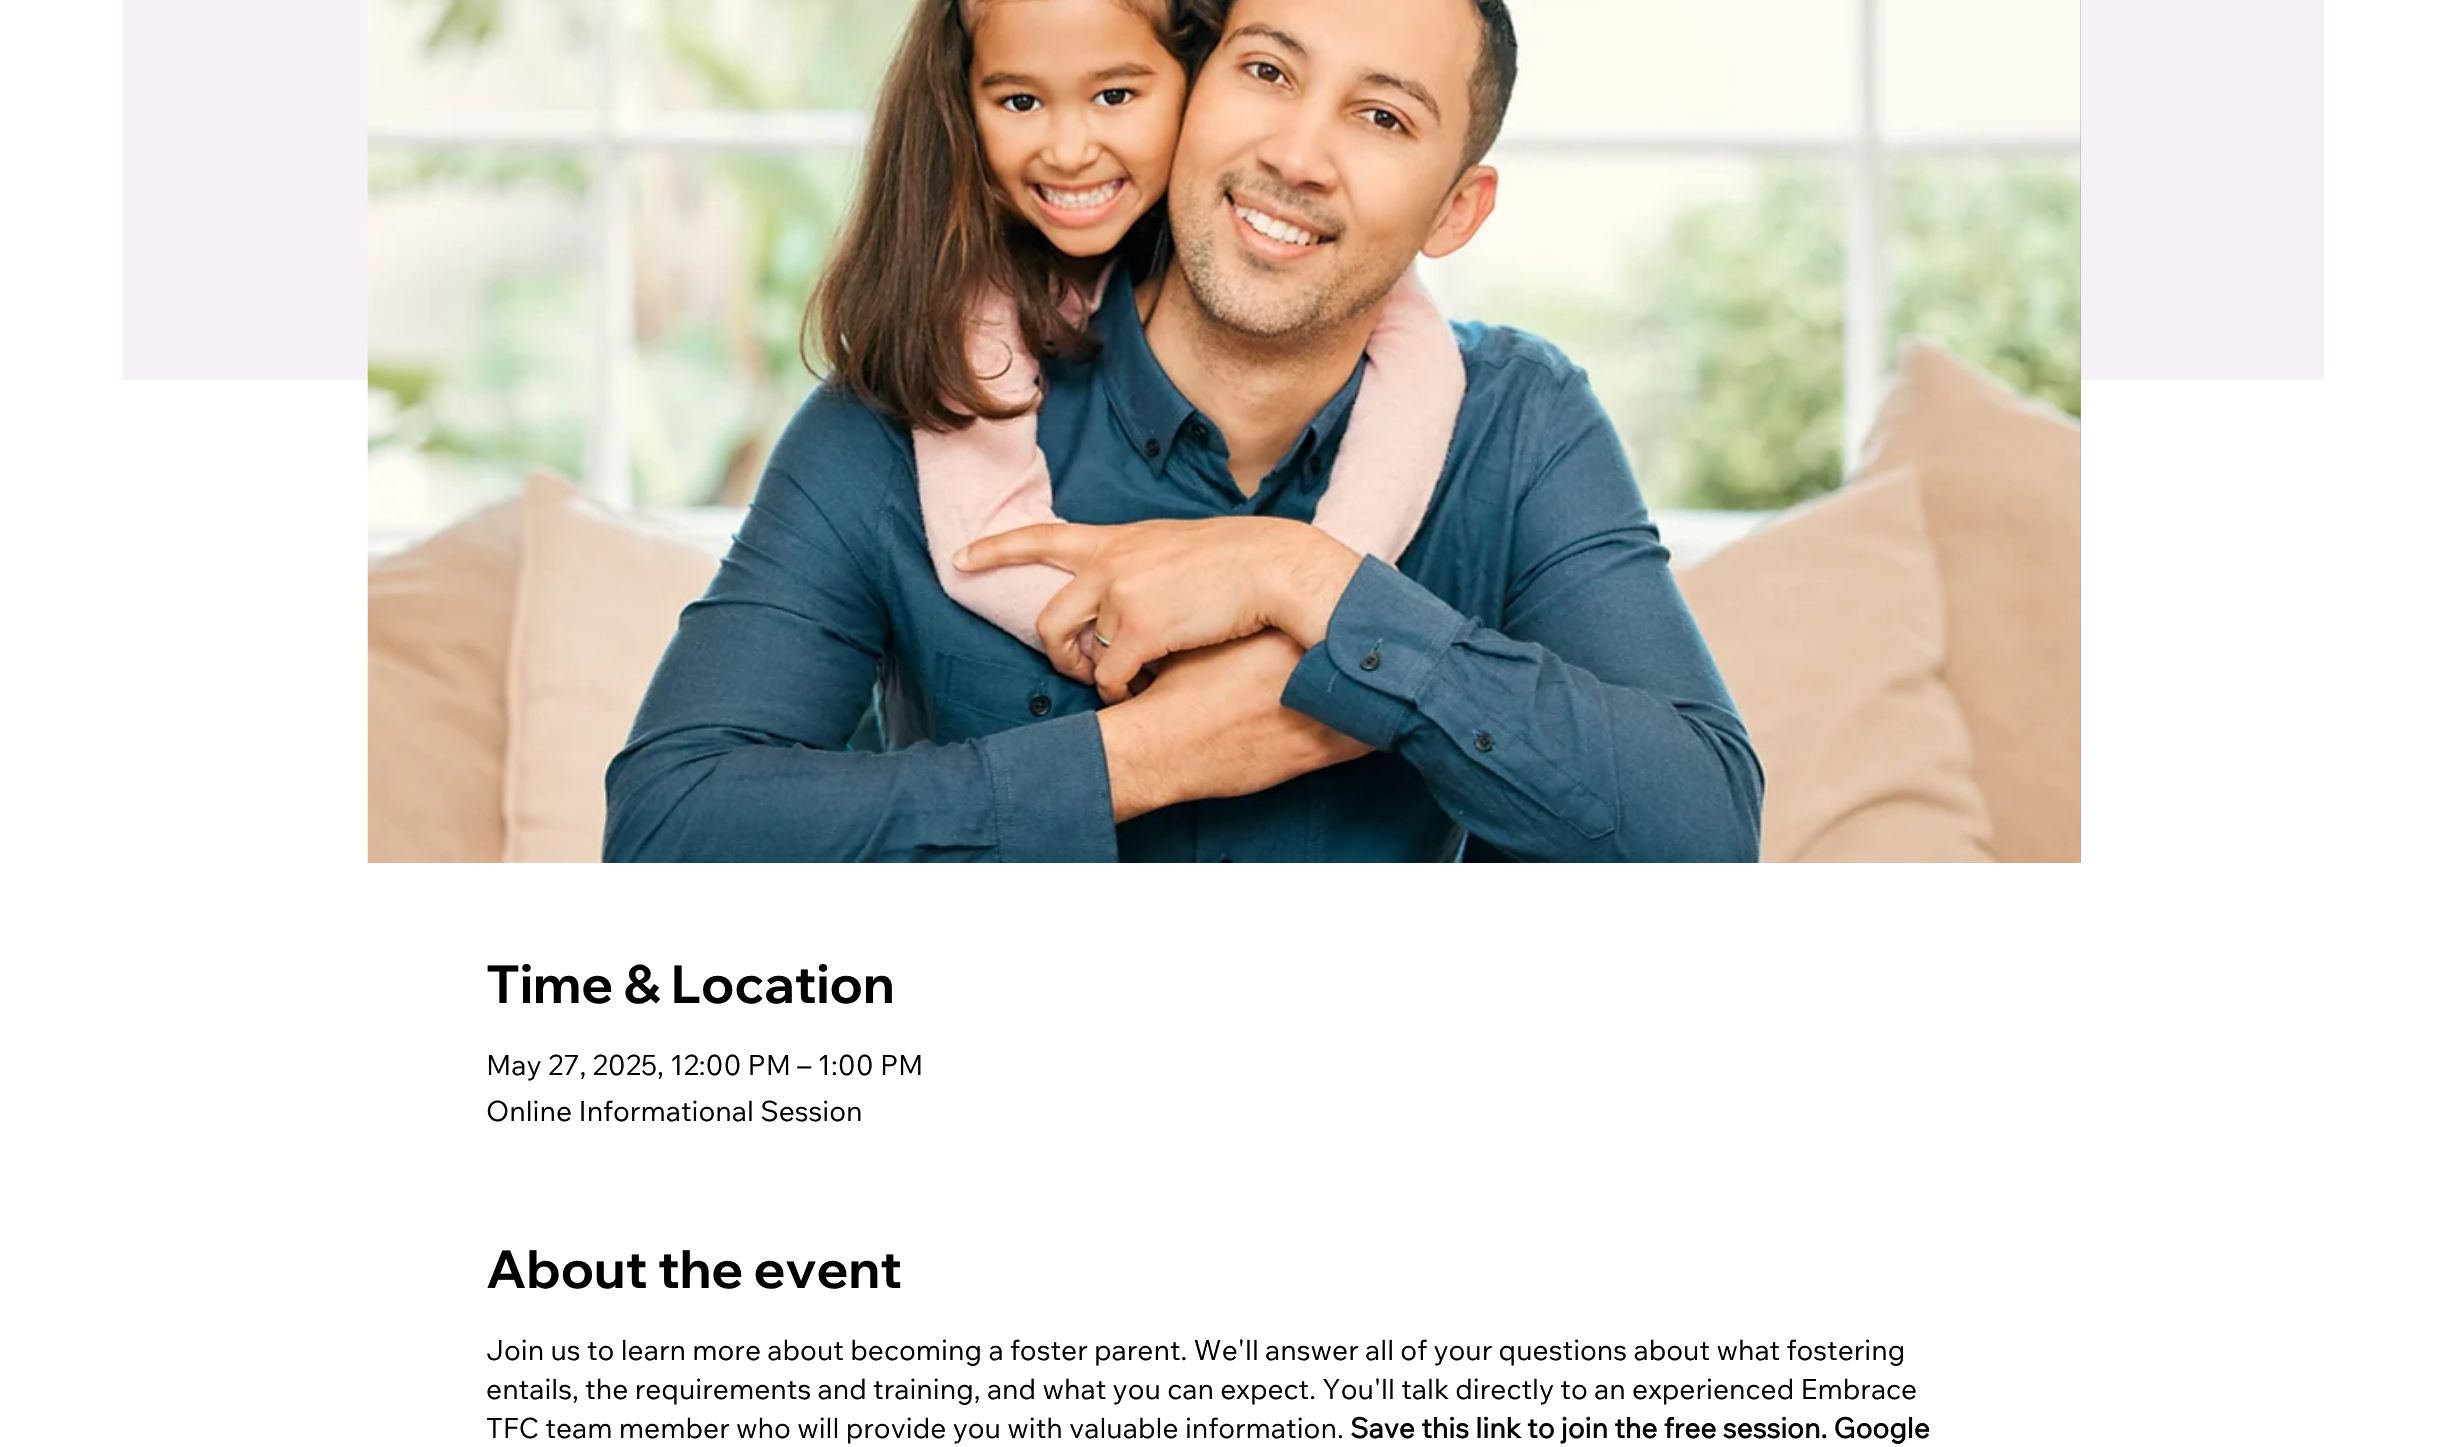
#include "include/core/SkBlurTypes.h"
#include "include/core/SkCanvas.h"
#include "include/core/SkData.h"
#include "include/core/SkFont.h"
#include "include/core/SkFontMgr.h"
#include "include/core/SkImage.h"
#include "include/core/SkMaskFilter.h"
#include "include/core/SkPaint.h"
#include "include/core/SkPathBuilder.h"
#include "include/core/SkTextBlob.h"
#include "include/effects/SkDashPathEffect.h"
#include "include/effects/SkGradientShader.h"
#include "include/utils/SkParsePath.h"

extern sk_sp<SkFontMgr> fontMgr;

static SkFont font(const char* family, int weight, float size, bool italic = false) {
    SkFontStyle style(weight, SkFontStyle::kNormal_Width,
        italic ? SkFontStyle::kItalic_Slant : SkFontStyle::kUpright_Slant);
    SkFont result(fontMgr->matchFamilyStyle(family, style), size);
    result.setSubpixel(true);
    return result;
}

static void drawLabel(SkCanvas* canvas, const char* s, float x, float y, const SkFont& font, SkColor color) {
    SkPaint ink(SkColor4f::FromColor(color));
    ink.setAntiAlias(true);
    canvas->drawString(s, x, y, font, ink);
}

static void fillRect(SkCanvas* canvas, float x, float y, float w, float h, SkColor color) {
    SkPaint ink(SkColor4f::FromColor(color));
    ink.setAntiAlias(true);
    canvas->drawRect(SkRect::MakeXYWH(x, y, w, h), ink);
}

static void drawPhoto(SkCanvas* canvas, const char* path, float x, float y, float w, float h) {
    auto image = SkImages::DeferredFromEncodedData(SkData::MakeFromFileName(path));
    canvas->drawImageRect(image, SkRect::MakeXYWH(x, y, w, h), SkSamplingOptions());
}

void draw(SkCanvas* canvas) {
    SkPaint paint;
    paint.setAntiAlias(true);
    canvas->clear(0xFFFFFFFF);
    fillRect(canvas, 123, 0, 2201, 380, 0xFFF5F1F7);
    fillRect(canvas, 2080, 0, 1, 863, 0xFFB197C3);
    drawPhoto(canvas, "assets/img1.png", 367, 0, 1714, 863);
    SkFont font1 = font("Wix Madefor Display", 700, 52.5f);
    drawLabel(canvas, "Time & Location", 486, 1003, font1, 0xFF000000);
    SkFont font2 = font("Wix Madefor Text", 400, 28);
    drawLabel(canvas, "May 27, 2025, 12:00 PM – 1:00 PM", 486, 1075, font2, 0xFF000000);
    drawLabel(canvas, "Online Informational Session", 486, 1121, font2, 0xFF000000);
    drawLabel(canvas, "About the event", 486, 1288, font1, 0xFF000000);
    drawLabel(canvas, "Join us to learn more about becoming a foster parent. We'll answer all of your questions about what fostering", 486, 1360, font2, 0xFF000000);
    drawLabel(canvas, "entails, the requirements and training, and what you can expect. You'll talk directly to an experienced Embrace", 486, 1399, font2, 0xFF000000);
    drawLabel(canvas, "TFC team member who will provide you with valuable information.", 486, 1438, font2, 0xFF000000);
    SkFont font3 = font("Wix Madefor Text", 700, 28);
    drawLabel(canvas, "Save this link to join the free session. Google", 1350, 1438, font3, 0xFF000000);
}
